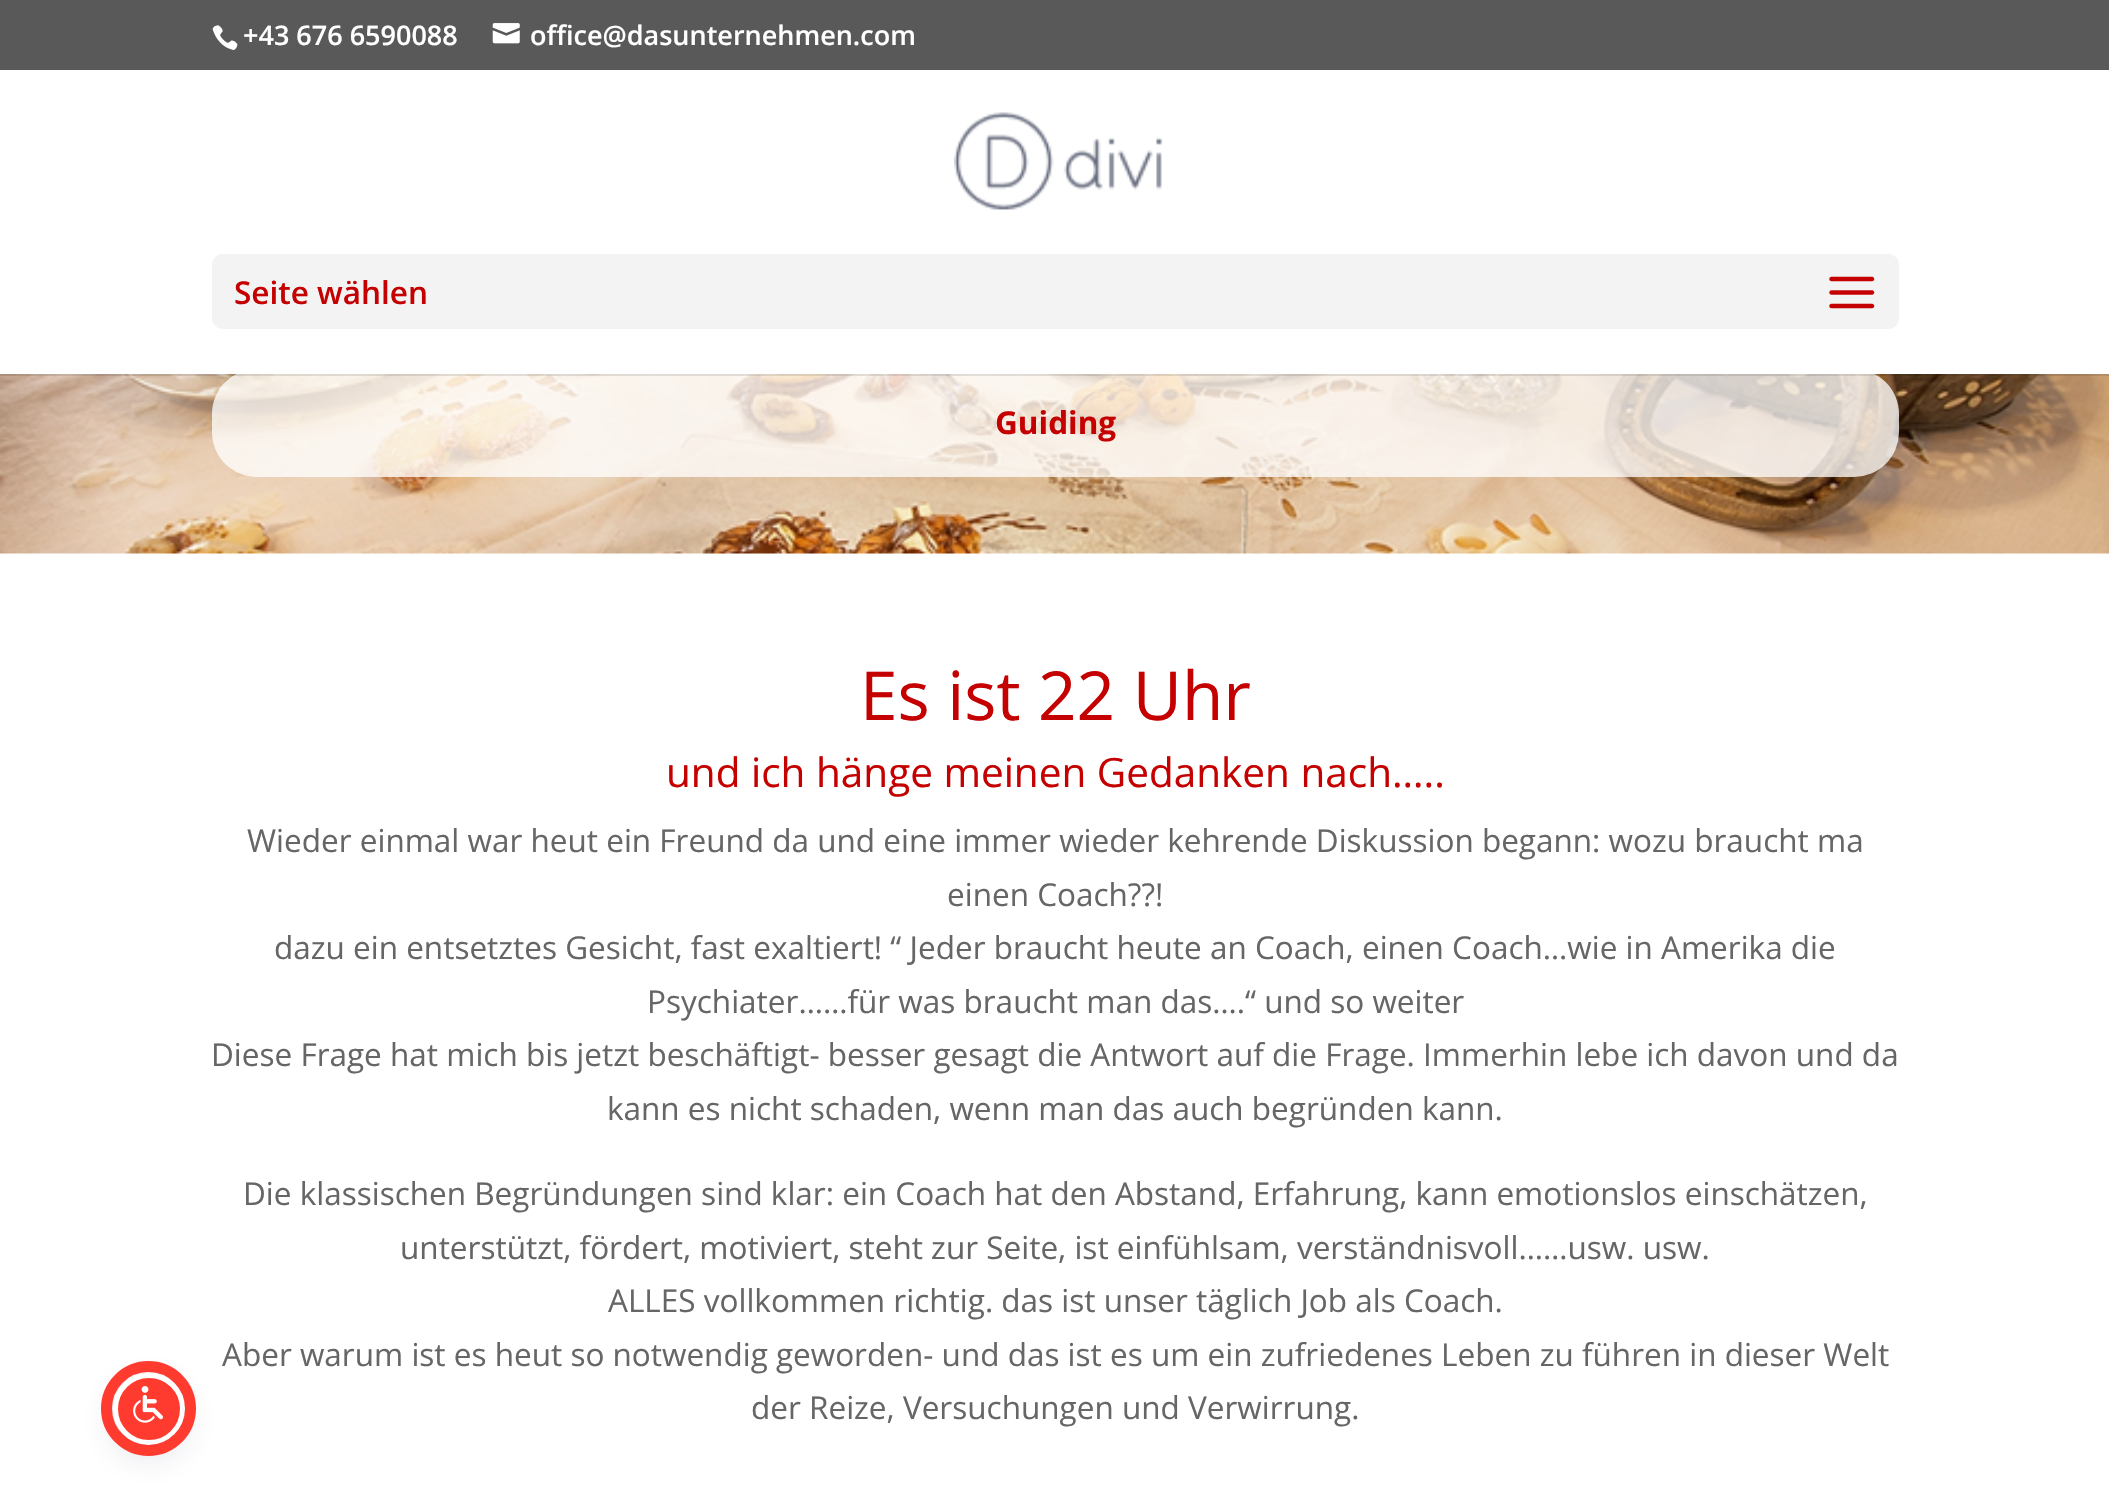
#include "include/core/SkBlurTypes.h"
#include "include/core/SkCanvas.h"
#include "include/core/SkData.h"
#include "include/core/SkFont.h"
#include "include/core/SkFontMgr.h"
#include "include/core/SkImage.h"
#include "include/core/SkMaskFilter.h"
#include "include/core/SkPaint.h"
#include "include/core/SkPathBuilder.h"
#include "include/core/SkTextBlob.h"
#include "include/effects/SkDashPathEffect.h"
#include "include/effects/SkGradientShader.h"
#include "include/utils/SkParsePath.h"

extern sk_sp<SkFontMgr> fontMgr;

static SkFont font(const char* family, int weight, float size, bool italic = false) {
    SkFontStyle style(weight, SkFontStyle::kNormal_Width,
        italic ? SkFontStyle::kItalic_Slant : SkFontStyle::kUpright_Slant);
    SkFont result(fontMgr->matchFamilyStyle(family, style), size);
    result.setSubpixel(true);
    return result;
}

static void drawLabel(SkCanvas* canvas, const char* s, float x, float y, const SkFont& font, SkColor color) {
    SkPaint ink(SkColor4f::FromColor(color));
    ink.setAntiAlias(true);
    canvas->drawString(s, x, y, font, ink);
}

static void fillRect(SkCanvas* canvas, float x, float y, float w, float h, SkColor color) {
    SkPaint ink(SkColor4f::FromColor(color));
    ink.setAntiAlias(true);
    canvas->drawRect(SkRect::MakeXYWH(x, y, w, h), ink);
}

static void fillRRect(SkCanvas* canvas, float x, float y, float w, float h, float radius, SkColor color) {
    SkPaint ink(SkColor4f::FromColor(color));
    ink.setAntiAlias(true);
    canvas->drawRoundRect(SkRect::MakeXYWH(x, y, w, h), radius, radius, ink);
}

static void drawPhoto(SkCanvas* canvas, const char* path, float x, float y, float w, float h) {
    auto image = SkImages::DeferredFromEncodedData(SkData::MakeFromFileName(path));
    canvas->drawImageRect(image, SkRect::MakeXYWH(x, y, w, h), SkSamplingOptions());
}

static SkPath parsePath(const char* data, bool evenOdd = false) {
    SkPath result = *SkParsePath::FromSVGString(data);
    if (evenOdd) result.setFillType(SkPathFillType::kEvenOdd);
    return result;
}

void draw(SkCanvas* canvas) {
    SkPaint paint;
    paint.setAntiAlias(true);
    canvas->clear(0xFFFFFFFF);
    paint.setColor(0x335D6494);
    paint.setMaskFilter(SkMaskFilter::MakeBlur(kNormal_SkBlurStyle, 4.5f));
    canvas->drawRoundRect(SkRect::MakeXYWH(113, 1377, 72, 72), 36, 36, paint);
    paint.setMaskFilter(nullptr);
    paint.setColor(0x26252C61);
    paint.setMaskFilter(SkMaskFilter::MakeBlur(kNormal_SkBlurStyle, 17));
    canvas->drawRoundRect(SkRect::MakeXYWH(113, 1384, 72, 72), 36, 36, paint);
    paint.setMaskFilter(nullptr);
    paint.setColor(0xFFFF3B30);
    canvas->drawCircle(149, 1409, 33.5f, paint);
    paint.setStroke(true);
    paint.setStrokeWidth(5);
    paint.setColor(0xFFFFFFFF);
    canvas->drawCircle(149, 1409, 33.5f, paint);
    paint.setStrokeWidth(11);
    paint.setColor(0xFFFF3B30);
    canvas->drawCircle(148.5f, 1408.5f, 42, paint);
    drawPhoto(canvas, "assets/img1.png", 133, 1386, 30, 37);
    fillRect(canvas, 0, 0, 2109, 70, 0xFF595959);
    drawPhoto(canvas, "assets/img2.png", 212, 25, 26, 26);
    SkFont font1 = font("Open Sans", 600, 27);
    drawLabel(canvas, "+43 676 6590088", 243, 45, font1, 0xFFFFFFFF);
    drawPhoto(canvas, "assets/img3.png", 492, 23, 28, 21);
    drawLabel(canvas, "office@dasunternehmen.com", 530, 45, font1, 0xFFFFFFFF);
    drawPhoto(canvas, "assets/img6.png", 0, 374, 2109, 180);
    fillRRect(canvas, 212, 369, 1687, 108, 45, 0xC2FFFFFF);
    paint.setStroke(false);
    paint.setColor(0x1A000000);
    canvas->drawPath(parsePath("M0 374V376H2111V70H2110V374Z"), paint);
    drawPhoto(canvas, "assets/img4.png", 954, 112, 209, 98);
    fillRRect(canvas, 212, 254, 1687, 75, 11, 0xFFF3F3F3);
    SkFont font2 = font("Open Sans", 600, 31.5f);
    drawLabel(canvas, "Seite wählen", 234, 304, font2, 0xFFC50000);
    drawPhoto(canvas, "assets/img5.png", 1829, 276, 46, 33);
    SkFont font3 = font("Open Sans", 700, 31.5f);
    drawLabel(canvas, "Guiding", 995, 434, font3, 0xFFC50000);
    SkFont font4 = font("Open Sans", 400, 67.5f);
    drawLabel(canvas, "Es ist 22 Uhr", 860, 720, font4, 0xFFC50000);
    SkFont font5 = font("Open Sans", 400, 40.5f);
    drawLabel(canvas, "und ich hänge meinen Gedanken nach…..", 666, 787, font5, 0xFFC50000);
    SkFont font6 = font("Open Sans", 400, 31.5f);
    drawLabel(canvas, "Wieder einmal war heut ein Freund da und eine immer wieder kehrende Diskussion begann: wozu braucht ma", 247, 852, font6, 0xFF666666);
    drawLabel(canvas, "einen Coach?\077!", 947, 906, font6, 0xFF666666);
    drawLabel(canvas, "dazu ein entsetztes Gesicht, fast exaltiert! “ Jeder braucht heute an Coach, einen Coach…wie in Amerika die", 274, 959, font6, 0xFF666666);
    drawLabel(canvas, "Psychiater……für was braucht man das….“ und so weiter", 647, 1013, font6, 0xFF666666);
    drawLabel(canvas, "Diese Frage hat mich bis jetzt beschäftigt- besser gesagt die Antwort auf die Frage. Immerhin lebe ich davon und da", 211, 1066, font6, 0xFF666666);
    drawLabel(canvas, "kann es nicht schaden, wenn man das auch begründen kann.", 607, 1120, font6, 0xFF666666);
    drawLabel(canvas, "Die klassischen Begründungen sind klar: ein Coach hat den Abstand, Erfahrung, kann emotionslos einschätzen,", 243, 1205, font6, 0xFF666666);
    drawLabel(canvas, "unterstützt, fördert, motiviert, steht zur Seite, ist einfühlsam, verständnisvoll……usw. usw.", 400, 1259, font6, 0xFF666666);
    drawLabel(canvas, "ALLES vollkommen richtig. das ist unser täglich Job als Coach.", 608, 1312, font6, 0xFF666666);
    drawLabel(canvas, "Aber warum ist es heut so notwendig geworden- und das ist es um ein zufriedenes Leben zu führen in dieser Welt", 222, 1366, font6, 0xFF666666);
    drawLabel(canvas, "der Reize, Versuchungen und Verwirrung.", 751, 1419, font6, 0xFF666666);
}
